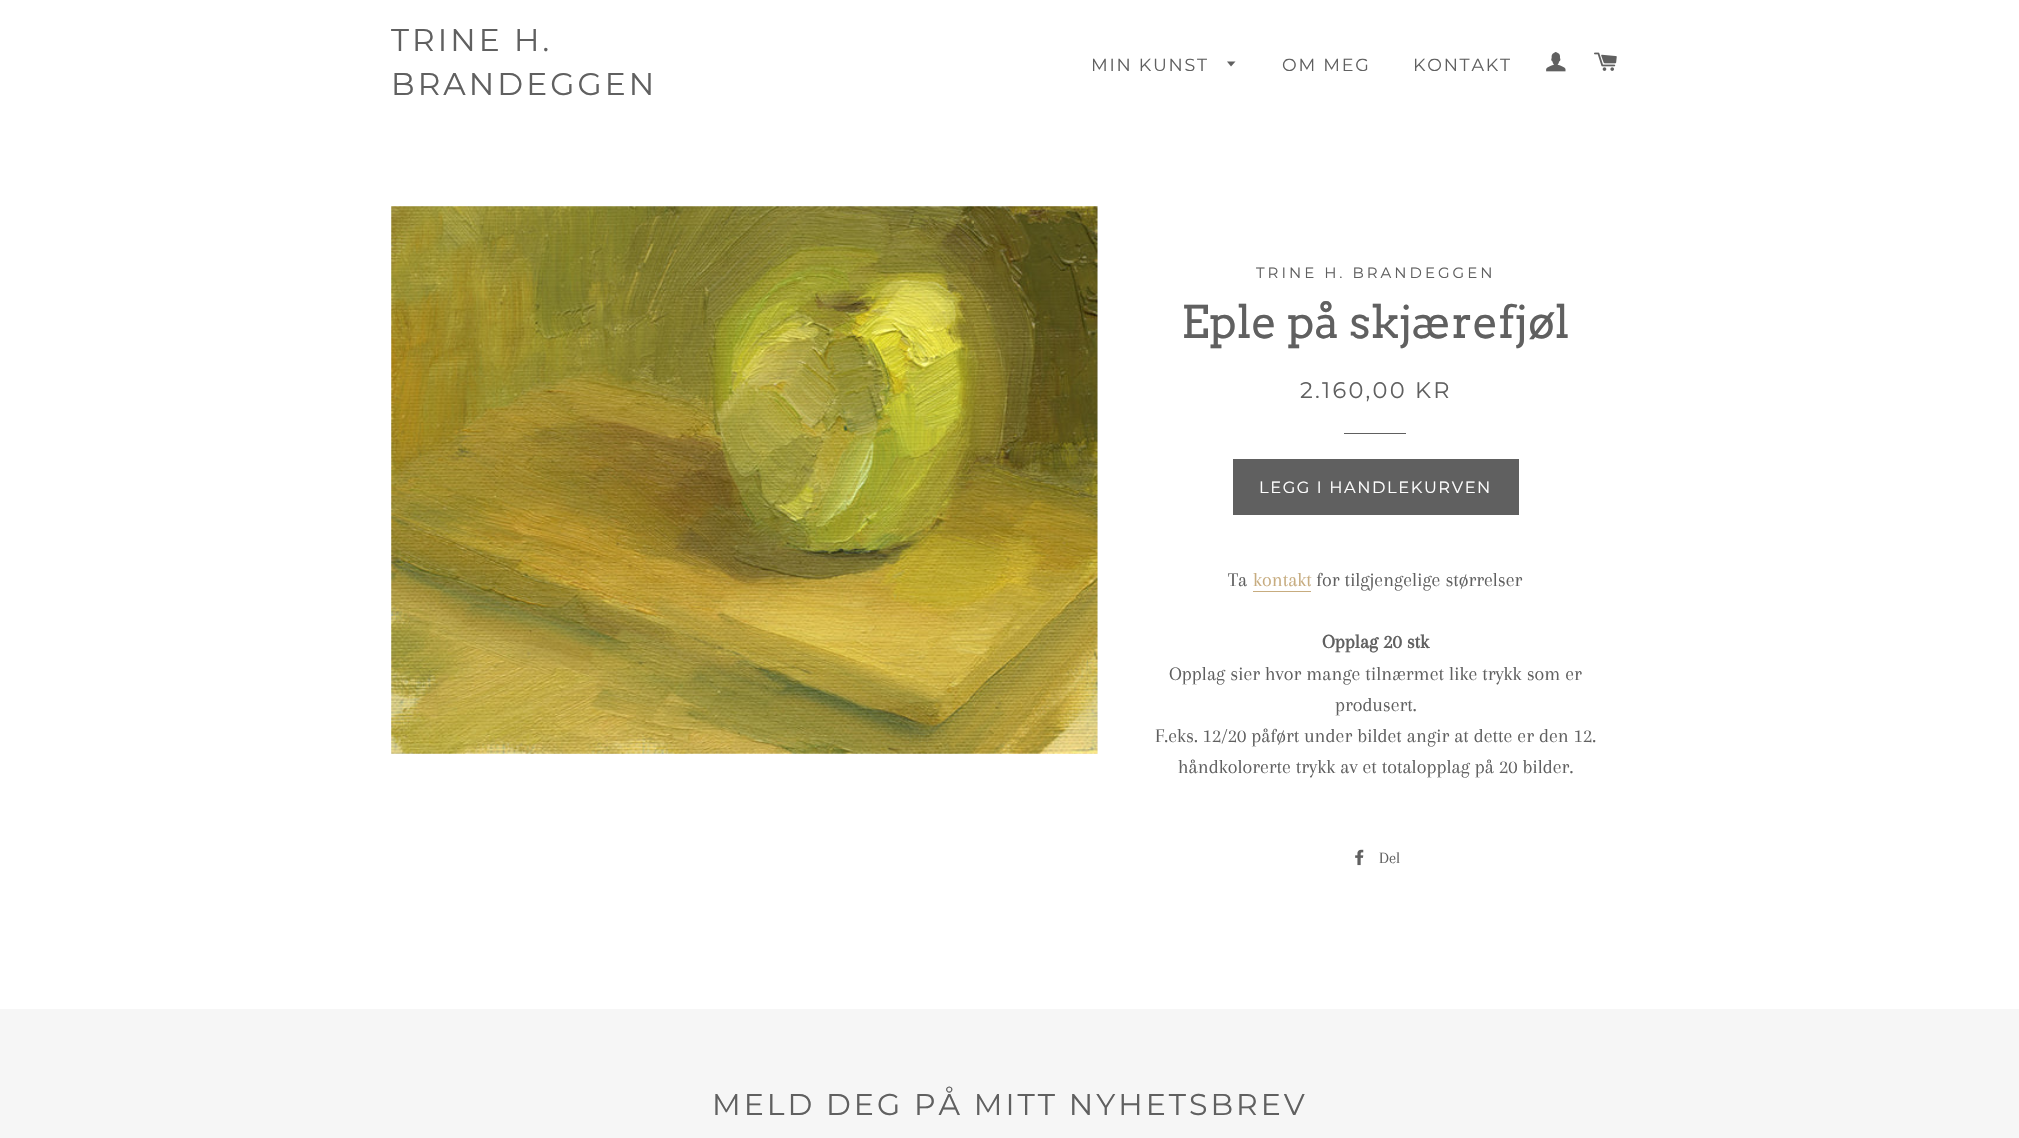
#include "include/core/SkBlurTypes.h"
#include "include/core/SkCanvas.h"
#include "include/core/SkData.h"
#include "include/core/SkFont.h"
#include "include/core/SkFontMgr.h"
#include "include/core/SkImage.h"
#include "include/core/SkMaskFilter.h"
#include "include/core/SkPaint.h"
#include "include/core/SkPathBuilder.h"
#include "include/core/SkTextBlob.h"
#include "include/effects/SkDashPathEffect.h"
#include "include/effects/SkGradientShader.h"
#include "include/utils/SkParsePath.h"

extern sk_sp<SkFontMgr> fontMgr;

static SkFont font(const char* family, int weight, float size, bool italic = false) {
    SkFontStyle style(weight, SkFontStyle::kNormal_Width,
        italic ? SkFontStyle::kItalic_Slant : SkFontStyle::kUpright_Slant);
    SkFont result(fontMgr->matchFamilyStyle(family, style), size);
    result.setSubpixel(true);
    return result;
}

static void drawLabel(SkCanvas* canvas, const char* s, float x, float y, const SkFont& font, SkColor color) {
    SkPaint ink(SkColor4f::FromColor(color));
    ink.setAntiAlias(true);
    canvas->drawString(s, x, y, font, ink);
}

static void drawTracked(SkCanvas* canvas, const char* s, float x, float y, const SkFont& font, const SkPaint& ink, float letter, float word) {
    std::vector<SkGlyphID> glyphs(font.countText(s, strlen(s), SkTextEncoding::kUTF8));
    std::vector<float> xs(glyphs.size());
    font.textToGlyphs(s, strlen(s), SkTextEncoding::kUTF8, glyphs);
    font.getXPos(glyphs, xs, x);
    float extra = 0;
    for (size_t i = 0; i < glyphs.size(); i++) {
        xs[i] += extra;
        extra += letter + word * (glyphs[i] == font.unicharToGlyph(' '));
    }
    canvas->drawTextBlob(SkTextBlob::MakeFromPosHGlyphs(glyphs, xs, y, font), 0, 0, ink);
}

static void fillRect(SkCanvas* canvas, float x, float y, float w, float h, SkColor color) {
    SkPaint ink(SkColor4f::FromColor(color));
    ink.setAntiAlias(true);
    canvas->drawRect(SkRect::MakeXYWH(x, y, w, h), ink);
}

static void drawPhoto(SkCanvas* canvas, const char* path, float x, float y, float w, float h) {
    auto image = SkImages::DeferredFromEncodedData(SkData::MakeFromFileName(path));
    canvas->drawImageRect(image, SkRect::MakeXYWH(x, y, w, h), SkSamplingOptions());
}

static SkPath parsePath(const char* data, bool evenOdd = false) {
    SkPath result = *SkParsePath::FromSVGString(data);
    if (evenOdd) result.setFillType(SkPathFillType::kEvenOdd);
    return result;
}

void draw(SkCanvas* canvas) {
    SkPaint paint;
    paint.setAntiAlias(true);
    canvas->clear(0xFFFFFFFF);
    SkFont font1 = font("Montserrat", 100, 31.25f);
    paint.setColor(0xFF606060);
    drawTracked(canvas, "TRINE H.", 391, 51, font1, paint, 3.1f, 0);
    drawTracked(canvas, "BRANDEGGEN", 391, 95, font1, paint, 3.1f, 0);
    SkFont font2 = font("Montserrat", 100, 17.5f);
    drawTracked(canvas, "MIN KUNST", 1091, 71, font2, paint, 1.75f, 0);
    canvas->drawPath(parsePath("M1227 61.5L1231 66.5L1235.5 61.5Z"), paint);
    drawTracked(canvas, "OM MEG", 1282, 71, font2, paint, 1.75f, 0);
    drawTracked(canvas, "KONTAKT", 1413, 71, font2, paint, 1.75f, 0);
    drawPhoto(canvas, "assets/img1.png", 1546, 52, 20, 20);
    drawPhoto(canvas, "assets/img2.png", 1594, 52, 23, 19);
    fillRect(canvas, 391, 206, 707, 548, 0xFFF7F7F7);
    drawPhoto(canvas, "assets/img3.png", 391, 206, 707, 548);
    SkFont font3 = font("Montserrat", 100, 15);
    drawTracked(canvas, "TRINE H. BRANDEGGEN", 1256, 278, font3, paint, 3, 0);
    SkFont font4 = font("Arvo", 400, 45);
    drawLabel(canvas, "Eple på skjærefjøl", 1181, 338, font4, 0xFF606060);
    SkFont font5 = font("Montserrat", 100, 22.5f);
    drawTracked(canvas, "2.160,00 KR", 1300, 398, font5, paint, 2.25f, 0);
    fillRect(canvas, 1344, 433, 62, 1, 0xFF606060);
    fillRect(canvas, 1233, 459, 286, 56, 0xFF606060);
    SkFont font6 = font("Montserrat", 100, 16.25f);
    paint.setColor(0xFFFFFFFF);
    drawTracked(canvas, "LEGG I HANDLEKURVEN", 1259, 493, font6, paint, 1.6f, 0);
    SkFont font7 = font("Arapey", 400, 20);
    drawLabel(canvas, "Ta", 1228, 586, font7, 0xFF606060);
    drawLabel(canvas, "kontakt", 1253, 586, font7, 0xFFC7AC7F);
    fillRect(canvas, 1253, 591, 58, 1, 0xFFC7AC7F);
    drawLabel(canvas, "for tilgjengelige størrelser", 1316, 586, font7, 0xFF606060);
    SkFont font8 = font("Arapey", 700, 20);
    drawLabel(canvas, "Opplag 20 stk", 1322, 648, font8, 0xFF606060);
    drawLabel(canvas, "Opplag sier hvor mange tilnærmet like trykk som er", 1169, 680, font7, 0xFF606060);
    drawLabel(canvas, "produsert.", 1335, 711, font7, 0xFF606060);
    drawLabel(canvas, "F.eks. 12/20 påført under bildet angir at dette er den 12.", 1155, 742, font7, 0xFF606060);
    drawLabel(canvas, "håndkolorerte trykk av et totalopplag på 20 bilder.", 1178, 773, font7, 0xFF606060);
    drawPhoto(canvas, "assets/img4.png", 1355, 849, 9, 17);
    SkFont font9 = font("Arapey", 400, 16.25f);
    drawLabel(canvas, "Del", 1379, 863, font9, 0xFF606060);
    fillRect(canvas, 0, 1009, 2019, 129, 0xFFF6F6F6);
    SkFont font10 = font("Montserrat", 100, 30);
    paint.setColor(0xFF606060);
    drawTracked(canvas, "MELD DEG PÅ MITT NYHETSBREV", 712, 1115, font10, paint, 3, 0);
}
